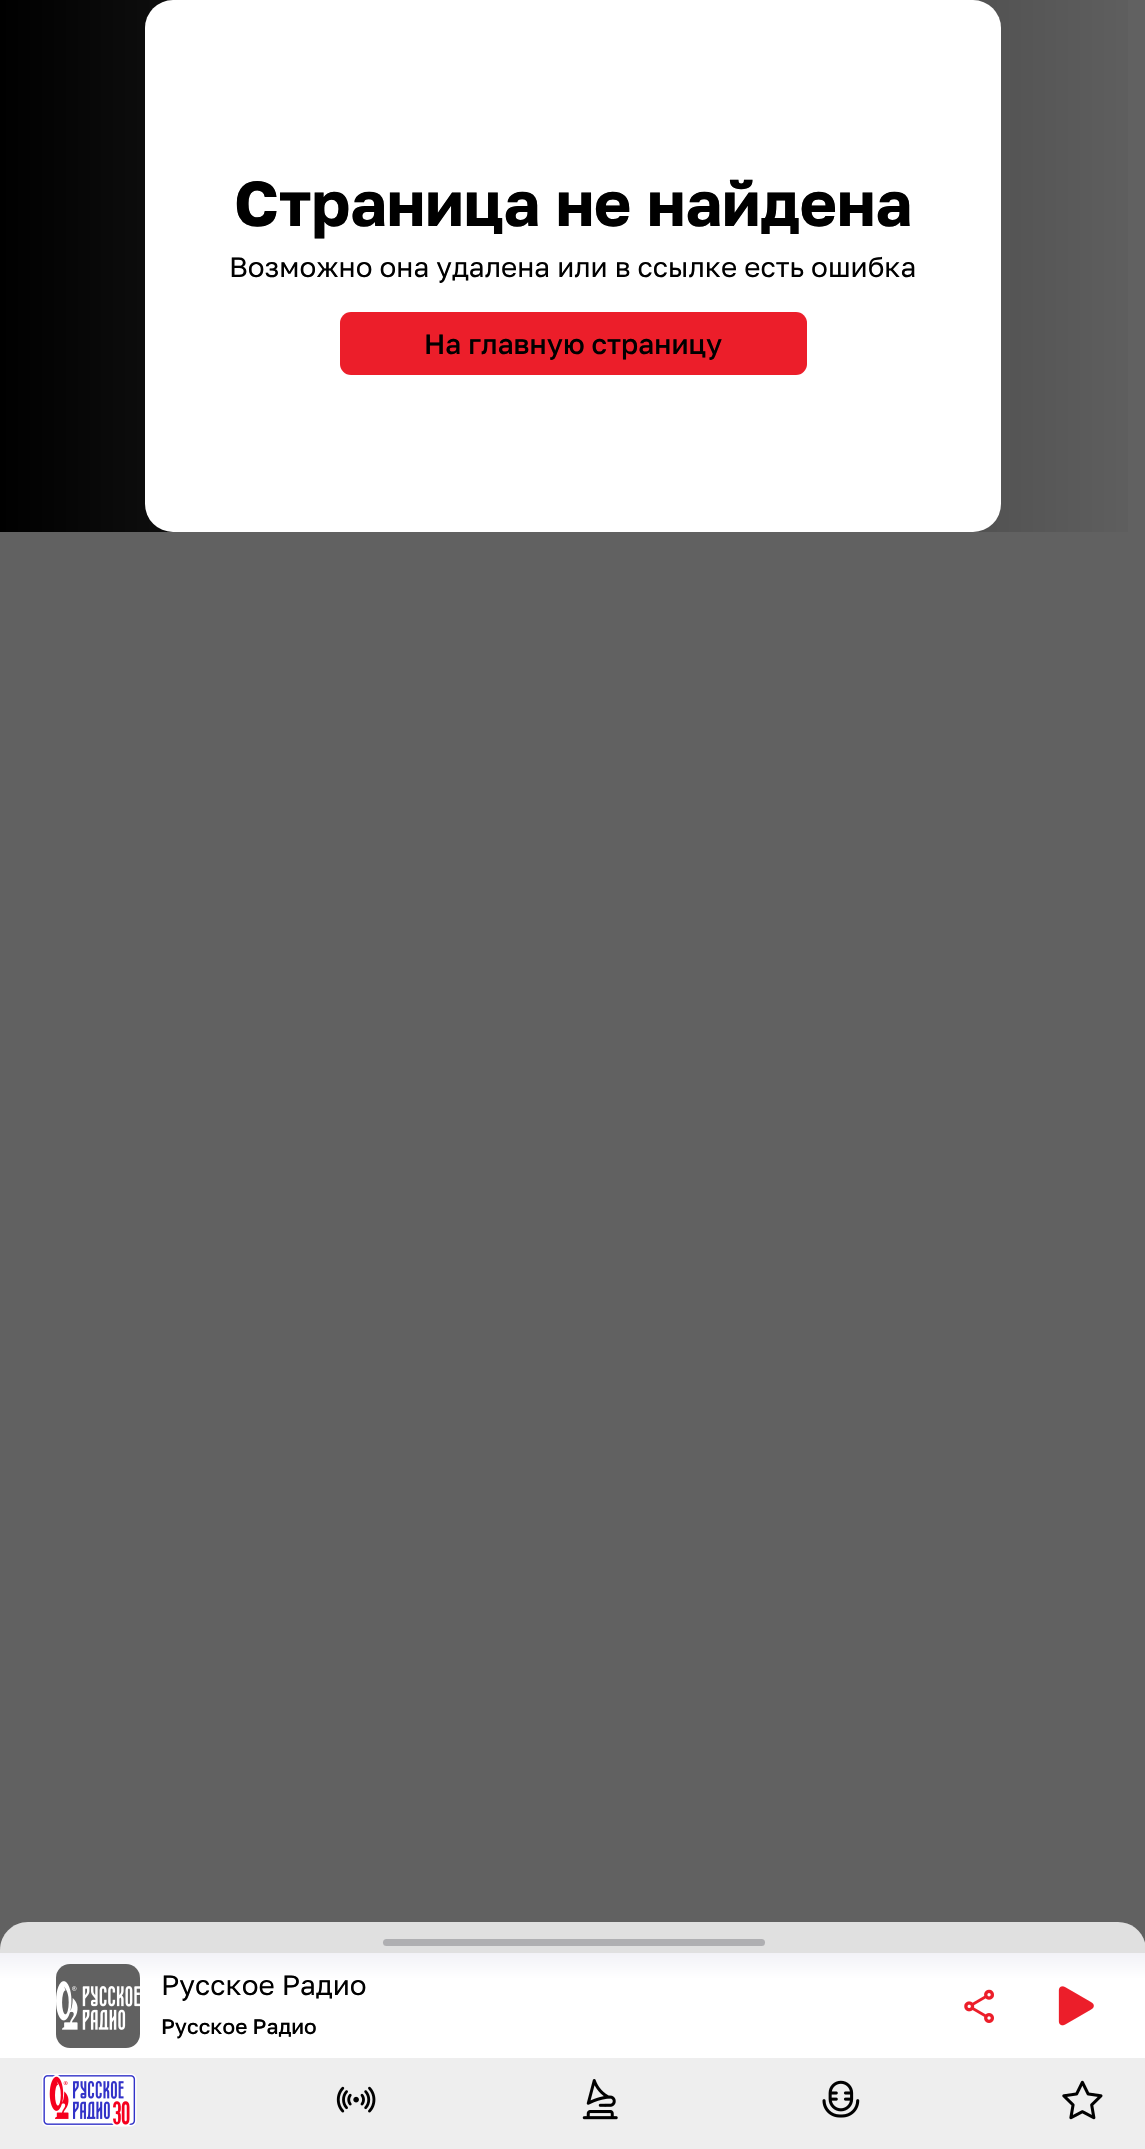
#include "include/core/SkBlurTypes.h"
#include "include/core/SkCanvas.h"
#include "include/core/SkData.h"
#include "include/core/SkFont.h"
#include "include/core/SkFontMgr.h"
#include "include/core/SkImage.h"
#include "include/core/SkMaskFilter.h"
#include "include/core/SkPaint.h"
#include "include/core/SkPathBuilder.h"
#include "include/core/SkTextBlob.h"
#include "include/effects/SkDashPathEffect.h"
#include "include/effects/SkGradientShader.h"
#include "include/utils/SkParsePath.h"

extern sk_sp<SkFontMgr> fontMgr;

static SkFont font(const char* family, int weight, float size, bool italic = false) {
    SkFontStyle style(weight, SkFontStyle::kNormal_Width,
        italic ? SkFontStyle::kItalic_Slant : SkFontStyle::kUpright_Slant);
    SkFont result(fontMgr->matchFamilyStyle(family, style), size);
    result.setSubpixel(true);
    return result;
}

static void drawLabel(SkCanvas* canvas, const char* s, float x, float y, const SkFont& font, SkColor color) {
    SkPaint ink(SkColor4f::FromColor(color));
    ink.setAntiAlias(true);
    canvas->drawString(s, x, y, font, ink);
}

static void fillRect(SkCanvas* canvas, float x, float y, float w, float h, SkColor color) {
    SkPaint ink(SkColor4f::FromColor(color));
    ink.setAntiAlias(true);
    canvas->drawRect(SkRect::MakeXYWH(x, y, w, h), ink);
}

static void fillRRect(SkCanvas* canvas, float x, float y, float w, float h, float radius, SkColor color) {
    SkPaint ink(SkColor4f::FromColor(color));
    ink.setAntiAlias(true);
    canvas->drawRoundRect(SkRect::MakeXYWH(x, y, w, h), radius, radius, ink);
}

static void drawPhoto(SkCanvas* canvas, const char* path, float x, float y, float w, float h) {
    auto image = SkImages::DeferredFromEncodedData(SkData::MakeFromFileName(path));
    canvas->drawImageRect(image, SkRect::MakeXYWH(x, y, w, h), SkSamplingOptions());
}

static SkPath parsePath(const char* data, bool evenOdd = false) {
    SkPath result = *SkParsePath::FromSVGString(data);
    if (evenOdd) result.setFillType(SkPathFillType::kEvenOdd);
    return result;
}

void draw(SkCanvas* canvas) {
    SkPaint paint;
    paint.setAntiAlias(true);
    canvas->clear(0xFF616161);
    {
        const SkColor colors[] = {0xFF000000, 0xFF606060};
        const float stops[] = {0, 1};
        const SkPoint ends[] = {{0, 266}, {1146, 266}};
        paint.setShader(SkGradientShader::MakeLinear(ends, colors, stops, 2, SkTileMode::kClamp));
        paint.setAlpha(255);
    }
    canvas->drawRect(SkRect::MakeXYWH(0, 0, 1128, 532), paint);
    fillRRect(canvas, 145, 0, 856, 532, 28, 0xFFFFFFFF);
    SkFont font1 = font("Golos Text", 700, 63);
    drawLabel(canvas, "Страница не найдена", 234, 226, font1, 0xFF000000);
    SkFont font2 = font("Golos Text", 400, 28);
    drawLabel(canvas, "Возможно она удалена или в ссылке есть ошибка", 229, 277, font2, 0xFF000000);
    fillRRect(canvas, 340, 312, 467, 63, 11, 0xFFEC1E2A);
    SkFont font3 = font("Golos Text", 500, 28);
    drawLabel(canvas, "На главную страницу", 424, 354, font3, 0xFF000000);
    paint.setShader(nullptr);
    paint.setColor(0xFFE0E0E0);
    canvas->drawPath(parsePath("M28 1922H1118C1133.5 1922 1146 1934.5 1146 1950V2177H0V1950C0 1934.5 12.5 1922 28 1922Z"), paint);
    fillRect(canvas, 0, 2058, 1145, 91, 0xFFEEEEEE);
    drawPhoto(canvas, "assets/img1.png", 42, 2073, 95, 54);
    drawPhoto(canvas, "assets/img2.png", 336, 2086, 40, 27);
    drawPhoto(canvas, "assets/img3.png", 582, 2079, 36, 41);
    drawPhoto(canvas, "assets/img4.png", 822, 2080, 38, 38);
    drawPhoto(canvas, "assets/img5.png", 1062, 2080, 41, 40);
    fillRRect(canvas, 383, 1939, 382, 7, 3.5f, 0xFFAFAFB2);
    {
        const SkColor colors[] = {0xFFFFFFFF, 0xFFFFFFFF, 0xFFF2F2F7};
        const float stops[] = {0, 0.75f, 1};
        const SkPoint ends[] = {{573, 2058}, {573, 1953}};
        paint.setShader(SkGradientShader::MakeLinear(ends, colors, stops, 3, SkTileMode::kClamp));
        paint.setAlpha(255);
    }
    canvas->drawRect(SkRect::MakeXYWH(0, 1953, 1145, 105), paint);
    fillRRect(canvas, 56, 1964, 84, 84, 14, 0xFF616161);
    drawPhoto(canvas, "assets/img6.png", 56, 1981, 84, 49);
    drawLabel(canvas, "Русское Радио", 161, 1995, font2, 0xFF000000);
    SkFont font4 = font("Golos Text", 500, 21);
    drawLabel(canvas, "Русское Радио", 161, 2034, font4, 0xFF000000);
    drawPhoto(canvas, "assets/img7.png", 964, 1989, 30, 34);
    drawPhoto(canvas, "assets/img8.png", 1058, 1986, 36, 40);
}
